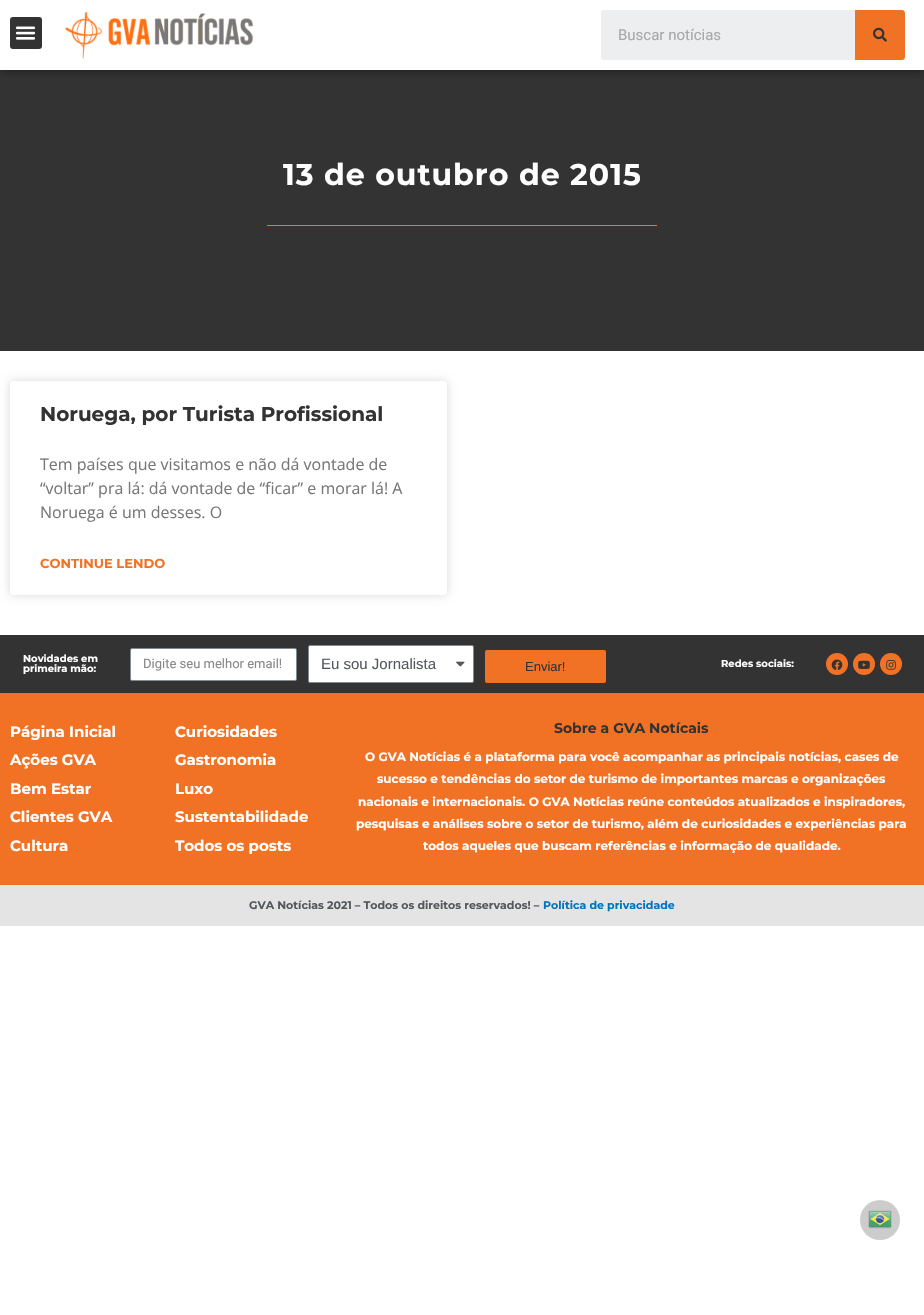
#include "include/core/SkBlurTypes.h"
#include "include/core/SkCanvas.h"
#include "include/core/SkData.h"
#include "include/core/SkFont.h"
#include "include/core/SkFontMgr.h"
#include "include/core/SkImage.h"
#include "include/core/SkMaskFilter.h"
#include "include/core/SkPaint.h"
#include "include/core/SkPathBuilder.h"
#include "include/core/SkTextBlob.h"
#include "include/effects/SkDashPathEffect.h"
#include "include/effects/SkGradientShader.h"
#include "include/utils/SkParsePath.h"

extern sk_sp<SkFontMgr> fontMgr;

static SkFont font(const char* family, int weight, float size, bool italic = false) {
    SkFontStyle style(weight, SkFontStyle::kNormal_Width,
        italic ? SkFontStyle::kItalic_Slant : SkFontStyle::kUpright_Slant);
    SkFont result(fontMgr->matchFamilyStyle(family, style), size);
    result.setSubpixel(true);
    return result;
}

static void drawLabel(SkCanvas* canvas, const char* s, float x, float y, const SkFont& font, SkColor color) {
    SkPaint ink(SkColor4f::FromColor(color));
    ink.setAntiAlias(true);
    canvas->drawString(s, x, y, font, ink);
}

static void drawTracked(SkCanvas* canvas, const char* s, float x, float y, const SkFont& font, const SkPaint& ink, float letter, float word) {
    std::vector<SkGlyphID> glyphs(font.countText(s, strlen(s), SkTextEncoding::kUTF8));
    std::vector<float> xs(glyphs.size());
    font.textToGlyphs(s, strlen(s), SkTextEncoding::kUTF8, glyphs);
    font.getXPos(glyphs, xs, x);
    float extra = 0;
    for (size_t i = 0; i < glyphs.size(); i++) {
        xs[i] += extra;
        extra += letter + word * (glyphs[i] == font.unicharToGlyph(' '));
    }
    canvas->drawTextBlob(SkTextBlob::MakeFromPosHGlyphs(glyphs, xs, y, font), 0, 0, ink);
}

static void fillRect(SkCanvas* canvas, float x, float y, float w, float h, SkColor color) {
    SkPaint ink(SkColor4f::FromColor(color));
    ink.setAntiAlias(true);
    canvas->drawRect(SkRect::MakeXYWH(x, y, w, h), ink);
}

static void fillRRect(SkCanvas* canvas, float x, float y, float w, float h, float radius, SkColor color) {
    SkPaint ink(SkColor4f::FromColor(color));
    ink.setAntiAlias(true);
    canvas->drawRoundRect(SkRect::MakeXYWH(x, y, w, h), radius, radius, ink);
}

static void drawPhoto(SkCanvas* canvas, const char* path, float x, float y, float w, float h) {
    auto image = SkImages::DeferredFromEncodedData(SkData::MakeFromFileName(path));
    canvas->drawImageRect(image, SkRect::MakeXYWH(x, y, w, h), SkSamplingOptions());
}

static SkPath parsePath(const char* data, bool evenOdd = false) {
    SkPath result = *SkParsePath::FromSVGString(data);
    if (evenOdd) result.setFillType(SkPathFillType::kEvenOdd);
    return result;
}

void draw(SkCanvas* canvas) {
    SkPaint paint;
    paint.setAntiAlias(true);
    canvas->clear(0xFFFFFFFF);
    fillRect(canvas, 0, 70, 924, 281, 0xFF333333);
    canvas->save();
    canvas->clipRect(SkRect::MakeXYWH(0, 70, 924, 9));
    paint.setColor(0x80000000);
    paint.setMaskFilter(SkMaskFilter::MakeBlur(kNormal_SkBlurStyle, 5));
    canvas->drawRect(SkRect::MakeXYWH(0, 0, 924, 70), paint);
    paint.setMaskFilter(nullptr);
    canvas->restore();
    fillRRect(canvas, 10, 17, 32, 32, 3, 0xFF333333);
    drawPhoto(canvas, "assets/img1.png", 15, 26, 21, 14);
    drawPhoto(canvas, "assets/img2.png", 65, 12, 189, 47);
    fillRRect(canvas, 601, 10, 304, 50, 3, 0xFFECEEEF);
    SkFont font1 = font("Roboto", 400, 15);
    drawLabel(canvas, "Buscar notícias", 618, 40, font1, 0xFFA8A8A9);
    paint.setColor(0xFFF27225);
    canvas->drawPath(parsePath("M855 10H902C903.5 10 905 11.5 905 13V57C905 58.5 903.5 60 902 60H855Z"), paint);
    drawPhoto(canvas, "assets/img3.png", 873, 27, 14, 15);
    SkFont font2 = font("Montserrat", 700, 30);
    paint.setColor(0xFFFFFFFF);
    drawTracked(canvas, "13 de outubro de 2015", 283, 185, font2, paint, 1, 0);
    fillRect(canvas, 267, 225, 390, 1, 0xFFF27225);
    paint.setColor(0x26000000);
    paint.setMaskFilter(SkMaskFilter::MakeBlur(kNormal_SkBlurStyle, 5));
    canvas->drawRoundRect(SkRect::MakeXYWH(10, 381, 437, 214), 3, 3, paint);
    paint.setMaskFilter(nullptr);
    fillRRect(canvas, 10, 381, 437, 214, 3, 0xFFFFFFFF);
    SkFont font3 = font("Montserrat", 700, 20);
    drawLabel(canvas, "Noruega, por Turista Profissional", 40, 421, font3, 0xFF333333);
    SkFont font4 = font("Open Sans", 400, 16);
    drawLabel(canvas, "Tem países que visitamos e não dá vontade de", 40, 470, font4, 0xFF777777);
    drawLabel(canvas, "“voltar” pra lá: dá vontade de “ficar” e morar lá! A", 40, 494, font4, 0xFF777777);
    drawLabel(canvas, "Noruega é um desses. O", 40, 518, font4, 0xFF777777);
    SkFont font5 = font("Montserrat", 700, 13);
    drawLabel(canvas, "CONTINUE LENDO", 40, 568, font5, 0xFFF27225);
    fillRect(canvas, 0, 635, 924, 58, 0xFF333333);
    SkFont font6 = font("Montserrat", 700, 10);
    drawLabel(canvas, "Novidades em", 23, 662, font6, 0xFFFFFFFF);
    drawLabel(canvas, "primeira mão:", 23, 672, font6, 0xFFFFFFFF);
    paint.setColor(0xFFFFFFFF);
    canvas->drawRoundRect(SkRect::MakeXYWH(130.5f, 648.5f, 166, 32), 1.5f, 1.5f, paint);
    paint.setStroke(true);
    paint.setStrokeWidth(1);
    paint.setColor(0xFF818A91);
    canvas->drawRoundRect(SkRect::MakeXYWH(130.5f, 648.5f, 166, 32), 1.5f, 1.5f, paint);
    SkFont font7 = font("Roboto", 400, 13);
    drawLabel(canvas, "Digite seu melhor email!", 143, 668, font7, 0xFF87898A);
    paint.setStroke(false);
    paint.setColor(0xFFFFFFFF);
    canvas->drawRoundRect(SkRect::MakeXYWH(308.5f, 645.5f, 165, 37), 1.5f, 1.5f, paint);
    paint.setStroke(true);
    paint.setColor(0xFF818A91);
    canvas->drawRoundRect(SkRect::MakeXYWH(308.5f, 645.5f, 165, 37), 1.5f, 1.5f, paint);
    SkFont font8 = font("Liberation Sans", 400, 15);
    drawLabel(canvas, "Eu sou Jornalista", 321, 669, font8, 0xFF54595F);
    drawPhoto(canvas, "assets/img4.png", 456, 661, 9, 6);
    fillRRect(canvas, 485, 650, 121, 33, 2, 0xFFF27225);
    SkFont font9 = font("Liberation Sans", 400, 13);
    drawLabel(canvas, "Enviar!", 525, 671, font9, 0xFF333333);
    drawLabel(canvas, "Redes sociais:", 721, 667, font6, 0xFFFFFFFF);
    paint.setStroke(false);
    paint.setColor(0xFFF27225);
    canvas->drawCircle(837, 664, 11, paint);
    drawPhoto(canvas, "assets/img5.png", 831, 659, 12, 12);
    canvas->drawCircle(864, 664, 11, paint);
    drawPhoto(canvas, "assets/img6.png", 858, 660, 12, 9);
    canvas->drawCircle(891, 664, 11, paint);
    drawPhoto(canvas, "assets/img7.png", 886, 660, 10, 10);
    fillRect(canvas, 0, 693, 924, 192, 0xFFF27225);
    SkFont font10 = font("Montserrat", 700, 15);
    drawLabel(canvas, "Página Inicial", 10, 737, font10, 0xFFFFFFFF);
    drawLabel(canvas, "Ações GVA", 10, 765, font10, 0xFFFFFFFF);
    drawLabel(canvas, "Bem Estar", 10, 794, font10, 0xFFFFFFFF);
    drawLabel(canvas, "Clientes GVA", 10, 822, font10, 0xFFFFFFFF);
    drawLabel(canvas, "Cultura", 10, 851, font10, 0xFFFFFFFF);
    drawLabel(canvas, "Curiosidades", 175, 737, font10, 0xFFFFFFFF);
    drawLabel(canvas, "Gastronomia", 175, 765, font10, 0xFFFFFFFF);
    drawLabel(canvas, "Luxo", 175, 794, font10, 0xFFFFFFFF);
    drawLabel(canvas, "Sustentabilidade", 175, 822, font10, 0xFFFFFFFF);
    drawLabel(canvas, "Todos os posts", 175, 851, font10, 0xFFFFFFFF);
    SkFont font11 = font("Montserrat", 700, 14);
    drawLabel(canvas, "Sobre a GVA Notícais", 554, 733, font11, 0xFF333333);
    SkFont font12 = font("Montserrat", 700, 12);
    drawLabel(canvas, "O GVA Notícias é a plataforma para você acompanhar as principais notícias, cases de", 365, 761, font12, 0xFFFFFFFF);
    drawLabel(canvas, "sucesso e tendências do setor de turismo de importantes marcas e organizações", 377, 783, font12, 0xFFFFFFFF);
    drawLabel(canvas, "nacionais e internacionais. O GVA Notícias reúne conteúdos atualizados e inspiradores,", 358, 806, font12, 0xFFFFFFFF);
    drawLabel(canvas, "pesquisas e análises sobre o setor de turismo, além de curiosidades e experiências para", 356, 828, font12, 0xFFFFFFFF);
    drawLabel(canvas, "todos aqueles que buscam referências e informação de qualidade.", 423, 850, font12, 0xFFFFFFFF);
    fillRect(canvas, 0, 885, 924, 41, 0xFFE4E4E4);
    SkFont font13 = font("Montserrat", 700, 11);
    drawLabel(canvas, "GVA Notícias 2021 – Todos os direitos reservados! –", 249, 909, font13, 0xFF54595F);
    drawLabel(canvas, "Política de privacidade", 543, 909, font13, 0xFF0274BE);
    paint.setColor(0xFFCCCCCC);
    canvas->drawCircle(880, 1220, 20, paint);
    drawPhoto(canvas, "assets/img8.png", 868, 1210, 24, 19);
}
